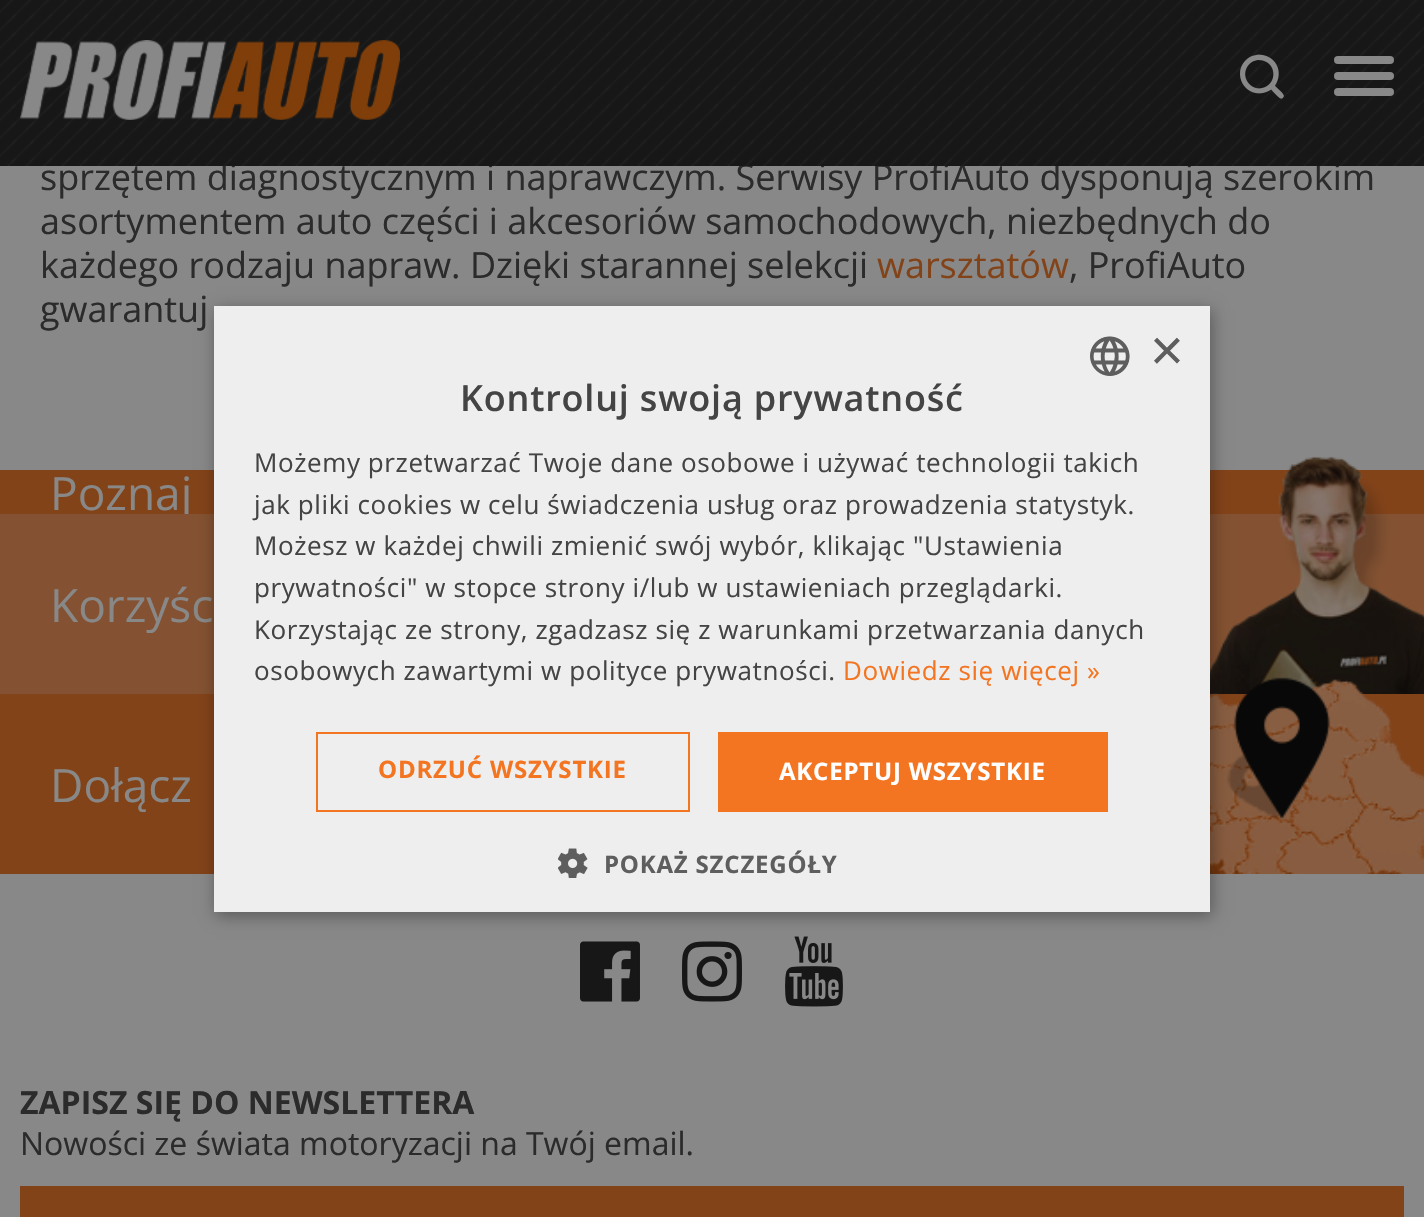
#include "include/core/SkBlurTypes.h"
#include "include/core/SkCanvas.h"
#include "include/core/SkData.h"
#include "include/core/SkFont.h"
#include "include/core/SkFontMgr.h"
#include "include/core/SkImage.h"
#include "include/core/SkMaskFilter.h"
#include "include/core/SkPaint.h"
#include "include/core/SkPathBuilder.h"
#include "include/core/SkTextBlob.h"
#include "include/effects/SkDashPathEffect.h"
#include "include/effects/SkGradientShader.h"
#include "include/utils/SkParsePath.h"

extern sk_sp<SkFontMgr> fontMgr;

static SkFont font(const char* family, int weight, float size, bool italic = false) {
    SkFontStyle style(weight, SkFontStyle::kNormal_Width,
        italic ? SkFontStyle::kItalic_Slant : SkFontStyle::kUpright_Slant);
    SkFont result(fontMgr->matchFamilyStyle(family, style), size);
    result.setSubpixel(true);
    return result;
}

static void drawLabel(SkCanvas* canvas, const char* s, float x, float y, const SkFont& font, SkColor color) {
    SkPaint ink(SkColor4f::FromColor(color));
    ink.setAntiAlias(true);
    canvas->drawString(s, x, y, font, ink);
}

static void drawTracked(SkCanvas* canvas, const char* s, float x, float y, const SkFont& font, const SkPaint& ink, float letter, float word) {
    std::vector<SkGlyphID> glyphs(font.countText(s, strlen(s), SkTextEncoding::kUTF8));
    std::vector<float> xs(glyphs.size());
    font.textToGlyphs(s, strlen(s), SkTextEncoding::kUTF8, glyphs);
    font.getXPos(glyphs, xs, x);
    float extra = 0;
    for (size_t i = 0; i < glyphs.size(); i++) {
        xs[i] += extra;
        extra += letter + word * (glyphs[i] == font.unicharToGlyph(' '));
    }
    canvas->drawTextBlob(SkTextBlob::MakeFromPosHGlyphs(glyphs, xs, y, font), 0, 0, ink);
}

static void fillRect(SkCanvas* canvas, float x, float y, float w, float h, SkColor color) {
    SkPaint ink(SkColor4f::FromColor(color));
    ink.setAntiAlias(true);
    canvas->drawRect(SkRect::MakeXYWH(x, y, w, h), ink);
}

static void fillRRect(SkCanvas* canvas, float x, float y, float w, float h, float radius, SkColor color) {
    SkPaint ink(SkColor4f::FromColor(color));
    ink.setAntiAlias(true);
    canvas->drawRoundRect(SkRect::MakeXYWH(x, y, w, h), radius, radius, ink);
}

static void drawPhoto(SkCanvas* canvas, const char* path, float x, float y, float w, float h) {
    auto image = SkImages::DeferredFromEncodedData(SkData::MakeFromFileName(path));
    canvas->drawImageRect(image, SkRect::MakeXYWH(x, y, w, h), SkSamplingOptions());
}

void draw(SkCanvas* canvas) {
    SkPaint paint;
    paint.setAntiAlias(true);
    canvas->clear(0xFF888888);
    SkFont font1 = font("Open Sans", 400, 36);
    drawLabel(canvas, "sprzętem diagnostycznym i naprawczym. Serwisy ProfiAuto dysponują szerokim", 40, 190, font1, 0xFF2B2B2B);
    drawPhoto(canvas, "assets/img1.png", 0, 0, 1424, 166);
    drawPhoto(canvas, "assets/img2.png", 20, 40, 380, 80);
    drawPhoto(canvas, "assets/img3.png", 1240, 54, 44, 45);
    fillRRect(canvas, 1334, 72, 60, 8, 4, 0xFF888888);
    fillRRect(canvas, 1334, 56, 60, 8, 4, 0xFF888888);
    fillRRect(canvas, 1334, 88, 60, 8, 4, 0xFF888888);
    drawLabel(canvas, "asortymentem auto części i akcesoriów samochodowych, niezbędnych do", 40, 234, font1, 0xFF2B2B2B);
    drawLabel(canvas, "każdego rodzaju napraw. Dzięki starannej selekcji", 40, 278, font1, 0xFF2B2B2B);
    drawLabel(canvas, "warsztatów", 877, 278, font1, 0xFF834319);
    drawLabel(canvas, ", ProfiAuto", 1069, 278, font1, 0xFF2B2B2B);
    drawLabel(canvas, "gwarantuj", 40, 322, font1, 0xFF2B2B2B);
    fillRect(canvas, 0, 470, 1424, 44, 0xFF834319);
    SkFont font2 = font("Open Sans", 400, 46);
    drawLabel(canvas, "Poznaj", 50, 510, font2, 0xFF888888);
    fillRect(canvas, 0, 514, 1424, 180, 0xFF845232);
    drawLabel(canvas, "Korzyśc", 50, 622, font2, 0xFF888888);
    drawPhoto(canvas, "assets/img4.png", 1210, 455, 214, 239);
    fillRect(canvas, 0, 694, 1424, 180, 0xFF834319);
    drawLabel(canvas, "Dołącz", 50, 802, font2, 0xFF888888);
    drawPhoto(canvas, "assets/img5.png", 1210, 677, 214, 197);
    drawPhoto(canvas, "assets/img6.png", 580, 941, 60, 61);
    drawPhoto(canvas, "assets/img7.png", 682, 941, 60, 61);
    drawPhoto(canvas, "assets/img8.png", 785, 936, 58, 71);
    SkFont font3 = font("Open Sans", 700, 32);
    drawLabel(canvas, "ZAPISZ SIĘ DO NEWSLETTERA", 20, 1114, font3, 0xFF2B2B2B);
    SkFont font4 = font("Open Sans", 400, 32);
    drawLabel(canvas, "Nowości ze świata motoryzacji na Twój email.", 20, 1155, font4, 0xFF2B2B2B);
    fillRect(canvas, 20, 1186, 1384, 31, 0xFF834319);
    paint.setColor(0x59000000);
    paint.setMaskFilter(SkMaskFilter::MakeBlur(kNormal_SkBlurStyle, 8));
    canvas->drawRect(SkRect::MakeXYWH(216, 310, 996, 606), paint);
    paint.setMaskFilter(nullptr);
    fillRect(canvas, 214, 306, 996, 606, 0xFFEEEEEE);
    drawPhoto(canvas, "assets/img9.png", 1090, 336, 40, 40);
    SkFont font5 = font("Liberation Sans", 400, 58);
    drawLabel(canvas, "×", 1150, 370, font5, 0xFF5E5E5E);
    SkFont font6 = font("Open Sans", 600, 36);
    paint.setColor(0xFF444444);
    drawTracked(canvas, "Kontroluj swoją prywatność", 460, 411, font6, paint, 0.8f, 0);
    SkFont font7 = font("Open Sans", 400, 26);
    drawTracked(canvas, "Możemy przetwarzać Twoje dane osobowe i używać technologii takich", 254, 472, font7, paint, 0.6f, 0);
    drawTracked(canvas, "jak pliki cookies w celu świadczenia usług oraz prowadzenia statystyk.", 254, 514, font7, paint, 0.6f, 0);
    drawTracked(canvas, "Możesz w każdej chwili zmienić swój wybór, klikając \"Ustawienia", 254, 555, font7, paint, 0.6f, 0);
    drawTracked(canvas, "prywatności\" w stopce strony i/lub w ustawieniach przeglądarki.", 254, 597, font7, paint, 0.6f, 0);
    drawTracked(canvas, "Korzystając ze strony, zgadzasz się z warunkami przetwarzania danych", 254, 639, font7, paint, 0.6f, 0);
    drawTracked(canvas, "osobowych zawartymi w polityce prywatności.", 254, 680, font7, paint, 0.6f, 0);
    paint.setColor(0xFFF47521);
    drawTracked(canvas, "Dowiedz się więcej »", 843, 680, font7, paint, 0.6f, 0);
    paint.setStroke(true);
    paint.setStrokeWidth(2);
    canvas->drawRect(SkRect::MakeXYWH(317, 733, 372, 78), paint);
    SkFont font8 = font("Open Sans", 700, 24);
    paint.setStroke(false);
    drawTracked(canvas, "ODRZUĆ WSZYSTKIE", 378, 778, font8, paint, 0.8f, 0);
    fillRect(canvas, 718, 732, 390, 80, 0xFFF47521);
    paint.setColor(0xFFFFFFFF);
    drawTracked(canvas, "AKCEPTUJ WSZYSTKIE", 779, 780, font8, paint, 0.8f, 0);
    drawPhoto(canvas, "assets/img10.png", 558, 848, 30, 30);
    paint.setColor(0xFF5E5E5E);
    drawTracked(canvas, "POKAŻ SZCZEGÓŁY", 604, 873, font8, paint, 0.8f, 0);
}
